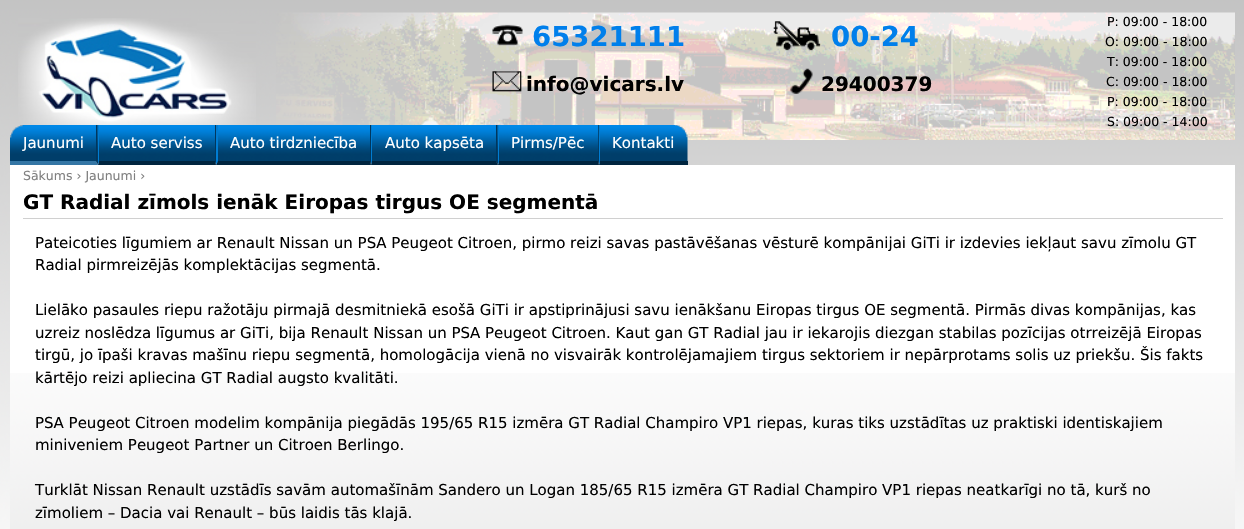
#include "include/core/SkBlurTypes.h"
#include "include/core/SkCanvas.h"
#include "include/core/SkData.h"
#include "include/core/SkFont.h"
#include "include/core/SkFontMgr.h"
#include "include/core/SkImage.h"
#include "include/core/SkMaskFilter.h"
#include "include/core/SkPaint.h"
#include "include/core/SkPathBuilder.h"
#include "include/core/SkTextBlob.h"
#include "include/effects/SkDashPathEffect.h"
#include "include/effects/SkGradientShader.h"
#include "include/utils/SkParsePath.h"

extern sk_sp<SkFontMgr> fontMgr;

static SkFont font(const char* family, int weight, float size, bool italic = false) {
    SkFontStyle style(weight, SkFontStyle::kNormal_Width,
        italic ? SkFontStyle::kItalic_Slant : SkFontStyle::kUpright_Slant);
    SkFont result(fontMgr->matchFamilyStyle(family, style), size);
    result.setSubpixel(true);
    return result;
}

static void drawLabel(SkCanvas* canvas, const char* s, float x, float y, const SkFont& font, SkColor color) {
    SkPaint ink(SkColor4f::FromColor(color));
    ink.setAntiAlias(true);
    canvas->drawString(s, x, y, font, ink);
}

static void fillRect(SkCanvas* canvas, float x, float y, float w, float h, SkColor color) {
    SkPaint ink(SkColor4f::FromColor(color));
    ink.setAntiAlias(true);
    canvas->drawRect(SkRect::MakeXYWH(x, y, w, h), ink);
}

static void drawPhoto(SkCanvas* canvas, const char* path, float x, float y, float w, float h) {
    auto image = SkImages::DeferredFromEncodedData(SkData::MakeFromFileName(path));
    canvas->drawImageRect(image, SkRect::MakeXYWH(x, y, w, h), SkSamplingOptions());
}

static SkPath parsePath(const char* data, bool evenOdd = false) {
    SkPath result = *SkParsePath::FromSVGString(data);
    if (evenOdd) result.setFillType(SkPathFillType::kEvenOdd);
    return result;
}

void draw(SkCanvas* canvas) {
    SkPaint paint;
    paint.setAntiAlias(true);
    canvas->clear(0xFFFFFFFF);
    drawPhoto(canvas, "assets/img1.png", 0, 0, 1244, 529);
    drawPhoto(canvas, "assets/img2.png", 276, 12, 959, 128);
    drawPhoto(canvas, "assets/img3.png", 18, 18, 238, 109);
    drawPhoto(canvas, "assets/img4.png", 492, 24, 31, 22);
    SkFont font1 = font("DejaVu Sans", 700, 27.5f);
    drawLabel(canvas, "65321111", 532, 46, font1, 0xFF007FEB);
    drawPhoto(canvas, "assets/img5.png", 773, 21, 48, 30);
    drawLabel(canvas, "00-24", 831, 46, font1, 0xFF007FEB);
    SkFont font2 = font("DejaVu Sans", 400, 12.5f);
    drawLabel(canvas, "P: 09:00 - 18:00", 1107, 26, font2, 0xFF000000);
    drawLabel(canvas, "O: 09:00 - 18:00", 1105, 46, font2, 0xFF000000);
    drawLabel(canvas, "T: 09:00 - 18:00", 1107, 66, font2, 0xFF000000);
    drawLabel(canvas, "C: 09:00 - 18:00", 1106, 86, font2, 0xFF000000);
    drawLabel(canvas, "P: 09:00 - 18:00", 1107, 106, font2, 0xFF000000);
    drawLabel(canvas, "S: 09:00 - 14:00", 1107, 126, font2, 0xFF000000);
    drawPhoto(canvas, "assets/img6.png", 492, 71, 30, 21);
    SkFont font3 = font("DejaVu Sans", 700, 20);
    drawLabel(canvas, "info@vicars.lv", 526, 91, font3, 0xFF000000);
    drawPhoto(canvas, "assets/img7.png", 790, 68, 23, 26);
    drawLabel(canvas, "29400379", 821, 91, font3, 0xFF000000);
    drawPhoto(canvas, "assets/img8.png", 10, 125, 87, 38);
    paint.setColor(0xFF00375E);
    canvas->drawPath(parsePath("M98 125V165L96 161V125Z"), paint);
    paint.setColor(0xFF3476A5);
    canvas->drawPath(parsePath("M98 165H10V161H96Z"), paint);
    SkFont font4 = font("DejaVu Sans", 400, 15);
    drawLabel(canvas, "Jaunumi", 23, 148, font4, 0xFFFFFFFF);
    drawPhoto(canvas, "assets/img9.png", 97, 125, 119, 38);
    paint.setColor(0xFF00375E);
    canvas->drawPath(parsePath("M216 125V165L215 161V125Z"), paint);
    paint.setColor(0xFF00253F);
    canvas->drawPath(parsePath("M216 165H98L99 161H215Z"), paint);
    paint.setColor(0xFF007CD2);
    canvas->drawPath(parsePath("M98 165V125H99V161Z"), paint);
    drawLabel(canvas, "Auto serviss", 111, 148, font4, 0xFFFFFFFF);
    drawPhoto(canvas, "assets/img10.png", 217, 125, 155, 38);
    paint.setColor(0xFF00375E);
    canvas->drawPath(parsePath("M371 125V165L370 161V125Z"), paint);
    paint.setColor(0xFF00253F);
    canvas->drawPath(parsePath("M371 165H216L218 161H370Z"), paint);
    paint.setColor(0xFF007CD2);
    canvas->drawPath(parsePath("M216 165V125H218V161Z"), paint);
    drawLabel(canvas, "Auto tirdzniecība", 230, 148, font4, 0xFFFFFFFF);
    drawPhoto(canvas, "assets/img11.png", 371, 125, 126, 38);
    paint.setColor(0xFF00375E);
    canvas->drawPath(parsePath("M498 125V165L496 161V125Z"), paint);
    paint.setColor(0xFF00253F);
    canvas->drawPath(parsePath("M498 165H371L372 161H496Z"), paint);
    paint.setColor(0xFF007CD2);
    canvas->drawPath(parsePath("M371 165V125H372V161Z"), paint);
    drawLabel(canvas, "Auto kapsēta", 385, 148, font4, 0xFFFFFFFF);
    drawPhoto(canvas, "assets/img12.png", 497, 125, 102, 38);
    paint.setColor(0xFF00375E);
    canvas->drawPath(parsePath("M599 125V165L598 161V125Z"), paint);
    paint.setColor(0xFF00253F);
    canvas->drawPath(parsePath("M599 165H498L499 161H598Z"), paint);
    paint.setColor(0xFF007CD2);
    canvas->drawPath(parsePath("M498 165V125H499V161Z"), paint);
    drawLabel(canvas, "Pirms/Pēc", 511, 148, font4, 0xFFFFFFFF);
    drawPhoto(canvas, "assets/img13.png", 598, 125, 90, 38);
    paint.setColor(0xFF00253F);
    canvas->drawPath(parsePath("M688 165H599L600 161H688Z"), paint);
    paint.setColor(0xFF007CD2);
    canvas->drawPath(parsePath("M599 165V125H600V161Z"), paint);
    drawLabel(canvas, "Kontakti", 612, 148, font4, 0xFFFFFFFF);
    fillRect(canvas, 10, 165, 1225, 208, 0xFFFFFFFF);
    drawPhoto(canvas, "assets/img14.png", 10, 373, 1225, 156);
    drawLabel(canvas, "Sākums › Jaunumi ›", 23, 180, font2, 0xFF808080);
    fillRect(canvas, 23, 218, 1200, 1, 0xFFD0D0D0);
    drawLabel(canvas, "GT Radial zīmols ienāk Eiropas tirgus OE segmentā", 23, 209, font3, 0xFF000000);
    drawLabel(canvas, "Pateicoties līgumiem ar Renault Nissan un PSA Peugeot Citroen, pirmo reizi savas pastāvēšanas vēsturē kompānijai GiTi ir izdevies iekļaut savu zīmolu GT", 35, 248, font4, 0xFF000000);
    drawLabel(canvas, "Radial pirmreizējās komplektācijas segmentā.", 35, 270, font4, 0xFF000000);
    drawLabel(canvas, "Lielāko pasaules riepu ražotāju pirmajā desmitniekā esošā GiTi ir apstiprinājusi savu ienākšanu Eiropas tirgus OE segmentā. Pirmās divas kompānijas, kas", 35, 315, font4, 0xFF000000);
    drawLabel(canvas, "uzreiz noslēdza līgumus ar GiTi, bija Renault Nissan un PSA Peugeot Citroen. Kaut gan GT Radial jau ir iekarojis diezgan stabilas pozīcijas otrreizējā Eiropas", 35, 338, font4, 0xFF000000);
    drawLabel(canvas, "tirgū, jo īpaši kravas mašīnu riepu segmentā, homologācija vienā no visvairāk kontrolējamajiem tirgus sektoriem ir nepārprotams solis uz priekšu. Šis fakts", 35, 360, font4, 0xFF000000);
    drawLabel(canvas, "kārtējo reizi apliecina GT Radial augsto kvalitāti.", 35, 383, font4, 0xFF000000);
    drawLabel(canvas, "PSA Peugeot Citroen modelim kompānija piegādās 195/65 R15 izmēra GT Radial Champiro VP1 riepas, kuras tiks uzstādītas uz praktiski identiskajiem", 35, 428, font4, 0xFF000000);
    drawLabel(canvas, "miniveniem Peugeot Partner un Citroen Berlingo.", 35, 450, font4, 0xFF000000);
    drawLabel(canvas, "Turklāt Nissan Renault uzstādīs savām automašīnām Sandero un Logan 185/65 R15 izmēra GT Radial Champiro VP1 riepas neatkarīgi no tā, kurš no", 35, 495, font4, 0xFF000000);
    drawLabel(canvas, "zīmoliem – Dacia vai Renault – būs laidis tās klajā.", 35, 518, font4, 0xFF000000);
}
